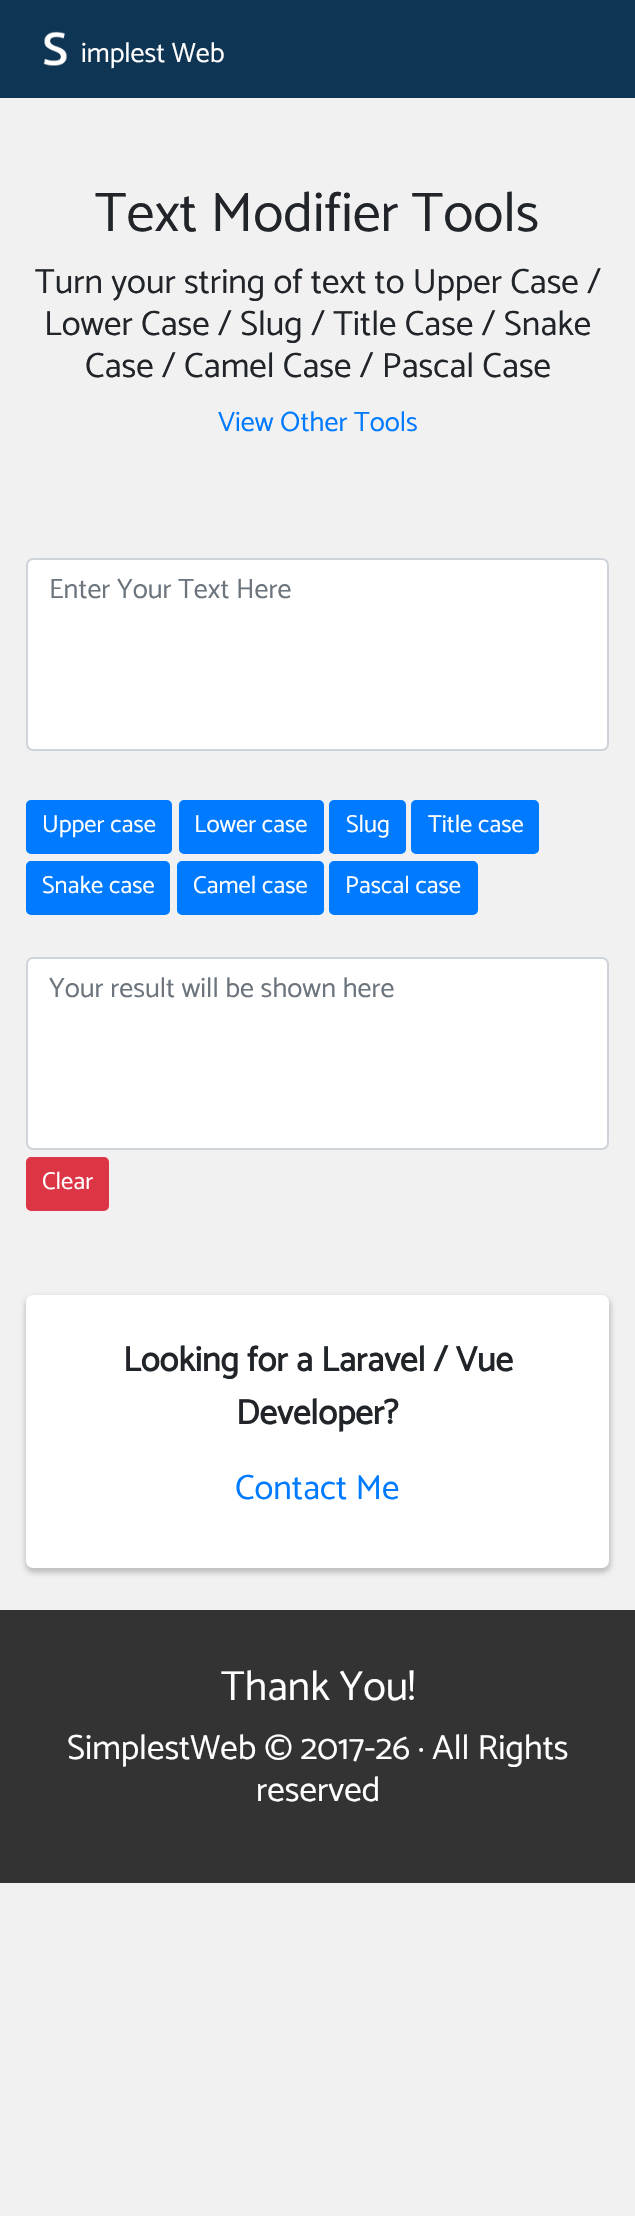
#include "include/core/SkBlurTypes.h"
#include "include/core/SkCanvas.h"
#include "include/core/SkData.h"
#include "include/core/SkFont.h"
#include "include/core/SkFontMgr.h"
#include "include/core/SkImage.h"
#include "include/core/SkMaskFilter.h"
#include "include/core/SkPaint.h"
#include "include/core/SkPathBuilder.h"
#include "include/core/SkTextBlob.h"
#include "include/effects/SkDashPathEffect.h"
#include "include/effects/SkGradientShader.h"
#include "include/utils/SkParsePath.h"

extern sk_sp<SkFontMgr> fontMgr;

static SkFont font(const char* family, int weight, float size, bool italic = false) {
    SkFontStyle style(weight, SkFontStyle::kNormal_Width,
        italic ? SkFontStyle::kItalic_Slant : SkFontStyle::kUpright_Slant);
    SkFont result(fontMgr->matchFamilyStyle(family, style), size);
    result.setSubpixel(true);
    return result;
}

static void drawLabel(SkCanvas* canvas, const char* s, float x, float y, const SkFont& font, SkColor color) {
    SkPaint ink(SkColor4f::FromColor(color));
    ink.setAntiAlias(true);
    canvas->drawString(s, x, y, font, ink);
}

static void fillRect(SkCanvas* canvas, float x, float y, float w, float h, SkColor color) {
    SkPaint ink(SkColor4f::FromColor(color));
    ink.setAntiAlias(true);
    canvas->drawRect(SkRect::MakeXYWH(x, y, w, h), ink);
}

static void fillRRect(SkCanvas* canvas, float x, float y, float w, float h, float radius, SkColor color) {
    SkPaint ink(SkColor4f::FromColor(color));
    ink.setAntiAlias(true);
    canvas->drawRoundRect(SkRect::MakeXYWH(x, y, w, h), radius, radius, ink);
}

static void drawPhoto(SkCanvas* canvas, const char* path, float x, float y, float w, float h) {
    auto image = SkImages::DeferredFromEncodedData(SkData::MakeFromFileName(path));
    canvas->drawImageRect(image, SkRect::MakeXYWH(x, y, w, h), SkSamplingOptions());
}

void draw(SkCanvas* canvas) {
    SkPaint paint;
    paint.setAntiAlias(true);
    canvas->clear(0xFFF1F1F1);
    fillRect(canvas, 0, 0, 635, 98, 0xFF0F3555);
    drawPhoto(canvas, "assets/img1.png", 43, 31, 24, 35);
    SkFont font1 = font("Catamaran", 100, 28);
    drawLabel(canvas, "implest Web", 81, 62, font1, 0xFFFFFFFF);
    SkFont font2 = font("Catamaran", 100, 56);
    drawLabel(canvas, "Text Modifier Tools", 95, 231, font2, 0xFF212529);
    SkFont font3 = font("Catamaran", 100, 35);
    drawLabel(canvas, "Turn your string of text to Upper Case /", 35, 293, font3, 0xFF212529);
    drawLabel(canvas, "Lower Case / Slug / Title Case / Snake", 44, 335, font3, 0xFF212529);
    drawLabel(canvas, "Case / Camel Case / Pascal Case", 85, 377, font3, 0xFF212529);
    drawLabel(canvas, "View Other Tools", 218, 431, font1, 0xFF007BFF);
    paint.setColor(0xFFFFFFFF);
    canvas->drawRoundRect(SkRect::MakeXYWH(27, 559, 581, 191), 6, 6, paint);
    paint.setStroke(true);
    paint.setStrokeWidth(2);
    paint.setColor(0xFFCED4DA);
    canvas->drawRoundRect(SkRect::MakeXYWH(27, 559, 581, 191), 6, 6, paint);
    drawLabel(canvas, "Enter Your Text Here", 49, 598, font1, 0xFF6C757D);
    paint.setStroke(false);
    paint.setColor(0xFF007BFF);
    canvas->drawRoundRect(SkRect::MakeXYWH(27, 801, 144, 52), 4, 4, paint);
    paint.setStroke(true);
    canvas->drawRoundRect(SkRect::MakeXYWH(27, 801, 144, 52), 4, 4, paint);
    SkFont font4 = font("Catamaran", 100, 24.5f);
    drawLabel(canvas, "Upper case", 42, 832, font4, 0xFFFFFFFF);
    paint.setStroke(false);
    canvas->drawRoundRect(SkRect::MakeXYWH(180, 801, 143, 52), 4, 4, paint);
    paint.setStroke(true);
    canvas->drawRoundRect(SkRect::MakeXYWH(180, 801, 143, 52), 4, 4, paint);
    drawLabel(canvas, "Lower case", 194, 832, font4, 0xFFFFFFFF);
    paint.setStroke(false);
    canvas->drawRoundRect(SkRect::MakeXYWH(330, 801, 75, 52), 4, 4, paint);
    paint.setStroke(true);
    canvas->drawRoundRect(SkRect::MakeXYWH(330, 801, 75, 52), 4, 4, paint);
    drawLabel(canvas, "Slug", 346, 832, font4, 0xFFFFFFFF);
    paint.setStroke(false);
    canvas->drawRoundRect(SkRect::MakeXYWH(412, 801, 126, 52), 4, 4, paint);
    paint.setStroke(true);
    canvas->drawRoundRect(SkRect::MakeXYWH(412, 801, 126, 52), 4, 4, paint);
    drawLabel(canvas, "Title case", 428, 832, font4, 0xFFFFFFFF);
    paint.setStroke(false);
    canvas->drawRoundRect(SkRect::MakeXYWH(27, 862, 142, 52), 4, 4, paint);
    paint.setStroke(true);
    canvas->drawRoundRect(SkRect::MakeXYWH(27, 862, 142, 52), 4, 4, paint);
    drawLabel(canvas, "Snake case", 42, 893, font4, 0xFFFFFFFF);
    paint.setStroke(false);
    canvas->drawRoundRect(SkRect::MakeXYWH(178, 862, 145, 52), 4, 4, paint);
    paint.setStroke(true);
    canvas->drawRoundRect(SkRect::MakeXYWH(178, 862, 145, 52), 4, 4, paint);
    drawLabel(canvas, "Camel case", 193, 893, font4, 0xFFFFFFFF);
    paint.setStroke(false);
    canvas->drawRoundRect(SkRect::MakeXYWH(330, 862, 147, 52), 4, 4, paint);
    paint.setStroke(true);
    canvas->drawRoundRect(SkRect::MakeXYWH(330, 862, 147, 52), 4, 4, paint);
    drawLabel(canvas, "Pascal case", 345, 893, font4, 0xFFFFFFFF);
    paint.setStroke(false);
    paint.setColor(0xFFFFFFFF);
    canvas->drawRoundRect(SkRect::MakeXYWH(27, 958, 581, 191), 6, 6, paint);
    paint.setStroke(true);
    paint.setColor(0xFFCED4DA);
    canvas->drawRoundRect(SkRect::MakeXYWH(27, 958, 581, 191), 6, 6, paint);
    drawLabel(canvas, "Your result will be shown here", 49, 997, font1, 0xFF6C757D);
    paint.setStroke(false);
    paint.setColor(0xFFDC3545);
    canvas->drawRoundRect(SkRect::MakeXYWH(27, 1158, 81, 52), 4, 4, paint);
    paint.setStroke(true);
    canvas->drawRoundRect(SkRect::MakeXYWH(27, 1158, 81, 52), 4, 4, paint);
    drawLabel(canvas, "Clear", 42, 1189, font4, 0xFFFFFFFF);
    paint.setStroke(false);
    paint.setColor(0x33000000);
    paint.setMaskFilter(SkMaskFilter::MakeBlur(kNormal_SkBlurStyle, 2.5f));
    canvas->drawRoundRect(SkRect::MakeXYWH(25, 1297, 586, 276), 9, 9, paint);
    paint.setMaskFilter(nullptr);
    fillRRect(canvas, 26, 1295, 583, 273, 7, 0xFFFFFFFF);
    SkFont font5 = font("Catamaran", 700, 35);
    drawLabel(canvas, "Looking for a Laravel / Vue", 123, 1371, font5, 0xFF212529);
    drawLabel(canvas, "Developer?", 236, 1424, font5, 0xFF212529);
    drawLabel(canvas, "Contact Me", 235, 1499, font3, 0xFF007BFF);
    fillRect(canvas, 0, 1610, 635, 273, 0xFF333333);
    SkFont font6 = font("Catamaran", 100, 42);
    drawLabel(canvas, "Thank You!", 221, 1700, font6, 0xFFFFFFFF);
    drawLabel(canvas, "SimplestWeb © 2017-26 · All Rights", 67, 1759, font3, 0xFFFFFFFF);
    drawLabel(canvas, "reserved", 256, 1801, font3, 0xFFFFFFFF);
}
